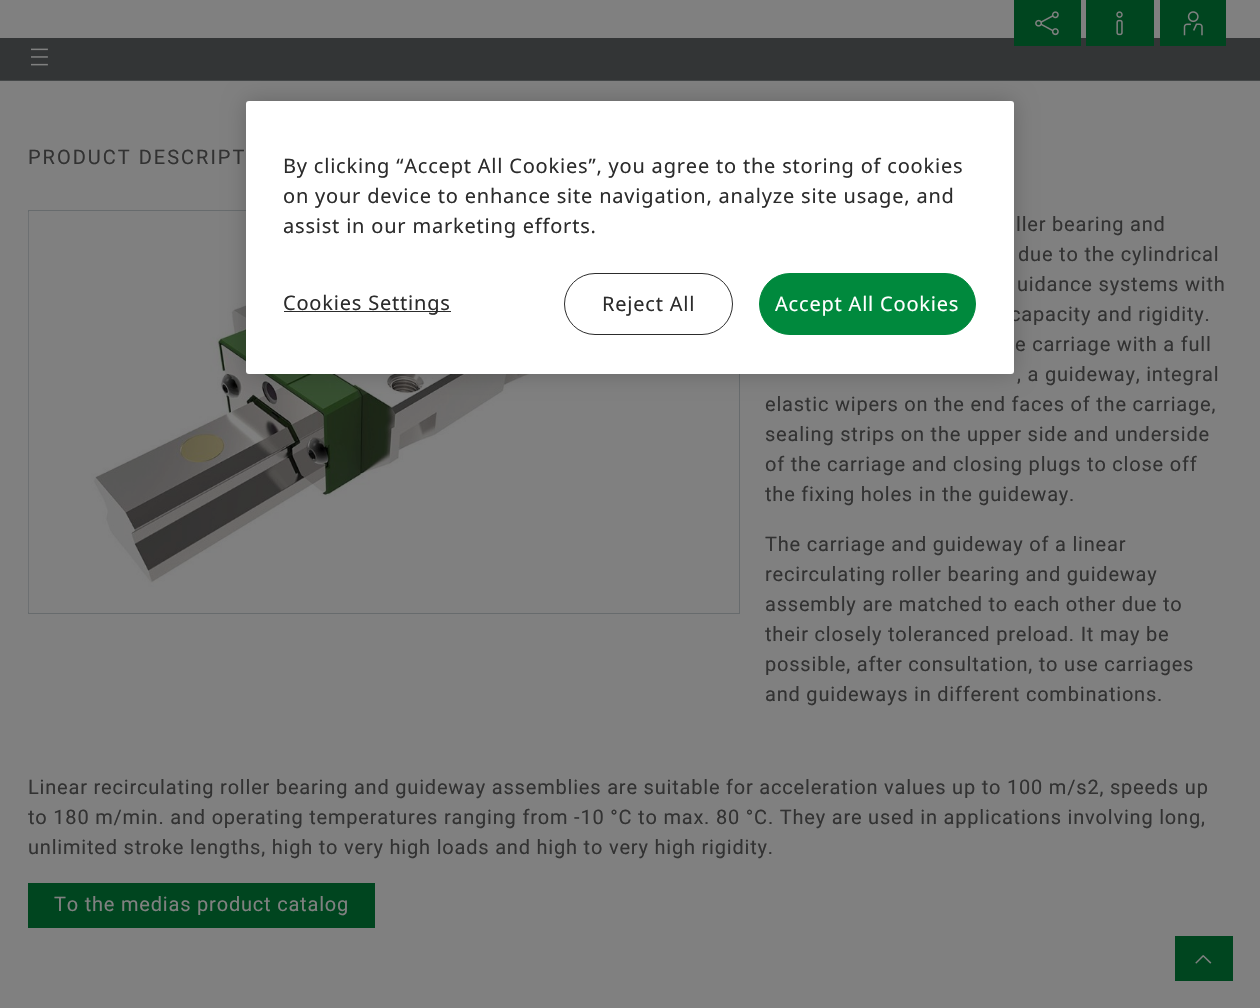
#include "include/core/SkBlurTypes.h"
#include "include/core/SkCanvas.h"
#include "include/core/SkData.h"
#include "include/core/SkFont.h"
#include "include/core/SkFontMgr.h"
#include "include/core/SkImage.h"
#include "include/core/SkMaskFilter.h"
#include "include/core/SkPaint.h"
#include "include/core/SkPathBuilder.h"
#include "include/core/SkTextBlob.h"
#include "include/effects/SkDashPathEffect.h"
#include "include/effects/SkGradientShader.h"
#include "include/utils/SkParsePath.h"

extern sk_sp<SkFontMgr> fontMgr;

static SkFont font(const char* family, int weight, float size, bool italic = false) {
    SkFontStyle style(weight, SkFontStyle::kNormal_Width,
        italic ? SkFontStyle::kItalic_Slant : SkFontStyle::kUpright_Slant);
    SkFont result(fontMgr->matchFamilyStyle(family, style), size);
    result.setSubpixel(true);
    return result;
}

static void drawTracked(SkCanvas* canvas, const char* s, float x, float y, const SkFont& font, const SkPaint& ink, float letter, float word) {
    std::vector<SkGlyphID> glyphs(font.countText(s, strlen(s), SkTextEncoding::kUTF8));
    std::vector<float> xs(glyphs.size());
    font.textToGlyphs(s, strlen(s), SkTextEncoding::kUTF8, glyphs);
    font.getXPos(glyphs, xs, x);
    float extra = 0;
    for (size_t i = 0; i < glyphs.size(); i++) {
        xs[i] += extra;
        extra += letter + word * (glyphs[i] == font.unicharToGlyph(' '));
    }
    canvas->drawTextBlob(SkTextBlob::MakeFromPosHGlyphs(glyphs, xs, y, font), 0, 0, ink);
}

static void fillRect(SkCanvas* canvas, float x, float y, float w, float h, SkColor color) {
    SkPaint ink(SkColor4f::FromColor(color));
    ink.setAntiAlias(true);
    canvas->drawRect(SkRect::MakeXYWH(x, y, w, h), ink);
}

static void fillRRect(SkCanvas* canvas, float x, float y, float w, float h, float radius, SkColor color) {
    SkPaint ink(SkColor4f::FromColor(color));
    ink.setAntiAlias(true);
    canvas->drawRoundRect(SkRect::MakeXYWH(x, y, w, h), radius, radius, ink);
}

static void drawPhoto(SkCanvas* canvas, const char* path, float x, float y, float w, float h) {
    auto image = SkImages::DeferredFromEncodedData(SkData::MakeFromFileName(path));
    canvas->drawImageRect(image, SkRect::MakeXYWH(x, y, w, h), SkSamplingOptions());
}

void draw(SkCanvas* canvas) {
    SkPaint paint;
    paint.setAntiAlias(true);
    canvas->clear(0xFF808080);
    fillRect(canvas, 0, 38, 1260, 42, 0xFF333536);
    fillRect(canvas, 1014, 0, 67, 46, 0xFF00451F);
    drawPhoto(canvas, "assets/img1.png", 1035, 11, 24, 25);
    fillRect(canvas, 1086, 0, 68, 46, 0xFF00451F);
    drawPhoto(canvas, "assets/img2.png", 1116, 11, 7, 25);
    fillRect(canvas, 1160, 0, 66, 46, 0xFF00451F);
    drawPhoto(canvas, "assets/img3.png", 1183, 11, 20, 25);
    fillRect(canvas, 0, 80, 1260, 1, 0xFF444748);
    drawPhoto(canvas, "assets/img4.png", 31, 48, 17, 18);
    SkFont font1 = font("Roboto", 400, 20);
    paint.setColor(0xFF323232);
    drawTracked(canvas, "PRODUCT DESCRIPT", 28, 164, font1, paint, 2, 0);
    paint.setStroke(true);
    paint.setStrokeWidth(1);
    paint.setColor(0xFF676B6D);
    canvas->drawRect(SkRect::MakeXYWH(28.5f, 210.5f, 711, 403), paint);
    drawPhoto(canvas, "assets/img5.png", 28, 212, 671, 400);
    paint.setStroke(false);
    paint.setColor(0xFF323232);
    drawTracked(canvas, "ller bearing and", 1016, 231, font1, paint, 0.8f, 0);
    drawTracked(canvas, "due to the cylindrical", 1018, 261, font1, paint, 0.8f, 0);
    drawTracked(canvas, "uidance systems with", 1017, 291, font1, paint, 0.8f, 0);
    drawTracked(canvas, "capacity and rigidity.", 1010, 321, font1, paint, 0.8f, 0);
    drawTracked(canvas, "e carriage with a full", 1015, 351, font1, paint, 0.8f, 0);
    drawTracked(canvas, ", a guideway, integral", 1017, 381, font1, paint, 0.8f, 0);
    drawTracked(canvas, "elastic wipers on the end faces of the carriage,", 765, 411, font1, paint, 0.8f, 0);
    drawTracked(canvas, "sealing strips on the upper side and underside", 765, 441, font1, paint, 0.8f, 0);
    drawTracked(canvas, "of the carriage and closing plugs to close off", 765, 471, font1, paint, 0.8f, 0);
    drawTracked(canvas, "the fixing holes in the guideway.", 765, 501, font1, paint, 0.8f, 0);
    drawTracked(canvas, "The carriage and guideway of a linear", 765, 551, font1, paint, 0.8f, 0);
    drawTracked(canvas, "recirculating roller bearing and guideway", 765, 581, font1, paint, 0.8f, 0);
    drawTracked(canvas, "assembly are matched to each other due to", 765, 611, font1, paint, 0.8f, 0);
    drawTracked(canvas, "their closely toleranced preload. It may be", 765, 641, font1, paint, 0.8f, 0);
    drawTracked(canvas, "possible, after consultation, to use carriages", 765, 671, font1, paint, 0.8f, 0);
    drawTracked(canvas, "and guideways in different combinations.", 765, 701, font1, paint, 0.8f, 0);
    drawTracked(canvas, "Linear recirculating roller bearing and guideway assemblies are suitable for acceleration values up to 100 m/s2, speeds up", 28, 794, font1, paint, 0.8f, 0);
    drawTracked(canvas, "to 180 m/min. and operating temperatures ranging from -10 °C to max. 80 °C. They are used in applications involving long,", 28, 824, font1, paint, 0.8f, 0);
    drawTracked(canvas, "unlimited stroke lengths, high to very high loads and high to very high rigidity.", 28, 854, font1, paint, 0.8f, 0);
    fillRect(canvas, 28, 883, 347, 45, 0xFF00451F);
    paint.setColor(0xFF808080);
    drawTracked(canvas, "To the medias product catalog", 54, 911, font1, paint, 0.8f, 0);
    paint.setColor(0x33000000);
    paint.setMaskFilter(SkMaskFilter::MakeBlur(kNormal_SkBlurStyle, 11));
    canvas->drawRoundRect(SkRect::MakeXYWH(246, 101, 768, 273), 3, 3, paint);
    paint.setMaskFilter(nullptr);
    fillRRect(canvas, 246, 101, 768, 273, 3, 0xFFFFFFFF);
    SkFont font2 = font("Noto Sans", 400, 20);
    paint.setColor(0xFF2C2C2C);
    drawTracked(canvas, "By clicking “Accept All Cookies”, you agree to the storing of cookies", 283, 173, font2, paint, 0.8f, 0);
    drawTracked(canvas, "on your device to enhance site navigation, analyze site usage, and", 283, 203, font2, paint, 0.8f, 0);
    drawTracked(canvas, "assist in our marketing efforts.", 283, 233, font2, paint, 0.8f, 0);
    fillRect(canvas, 284, 311, 167, 1, 0xFF2C2C2C);
    drawTracked(canvas, "Cookies Settings", 283, 310, font2, paint, 0.8f, 0);
    paint.setStroke(true);
    canvas->drawRoundRect(SkRect::MakeXYWH(564.5f, 273.5f, 168, 61), 30.5f, 30.5f, paint);
    paint.setStroke(false);
    drawTracked(canvas, "Reject All", 602, 311, font2, paint, 0.8f, 0);
    paint.setColor(0xFF00893D);
    canvas->drawRoundRect(SkRect::MakeXYWH(759.5f, 273.5f, 216, 61), 30.5f, 30.5f, paint);
    paint.setStroke(true);
    canvas->drawRoundRect(SkRect::MakeXYWH(759.5f, 273.5f, 216, 61), 30.5f, 30.5f, paint);
    paint.setStroke(false);
    paint.setColor(0xFFFFFFFF);
    drawTracked(canvas, "Accept All Cookies", 775, 311, font2, paint, 0.8f, 0);
    fillRect(canvas, 1175, 936, 58, 45, 0xFF00451F);
    drawPhoto(canvas, "assets/img6.png", 1195, 955, 17, 9);
}
